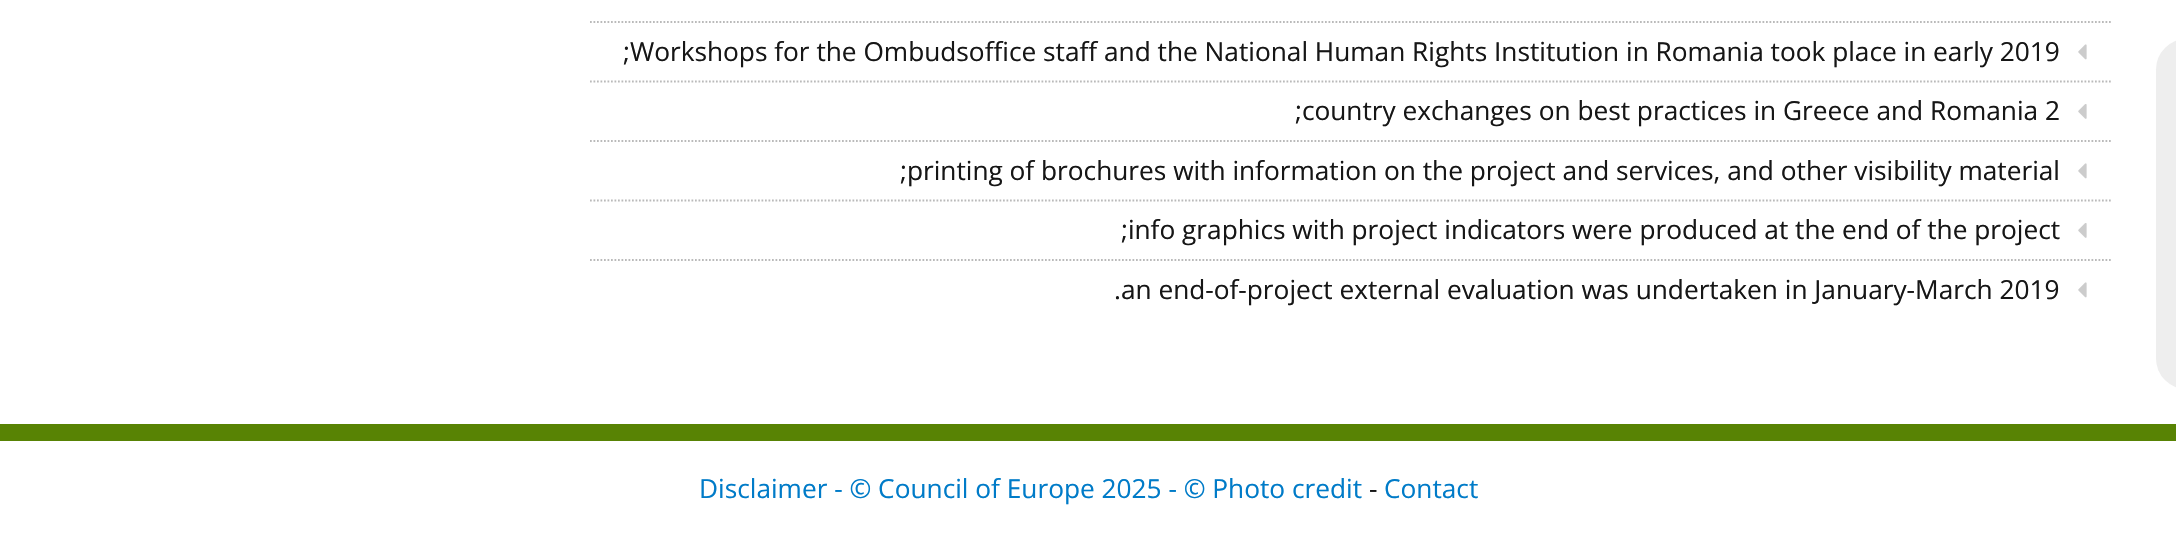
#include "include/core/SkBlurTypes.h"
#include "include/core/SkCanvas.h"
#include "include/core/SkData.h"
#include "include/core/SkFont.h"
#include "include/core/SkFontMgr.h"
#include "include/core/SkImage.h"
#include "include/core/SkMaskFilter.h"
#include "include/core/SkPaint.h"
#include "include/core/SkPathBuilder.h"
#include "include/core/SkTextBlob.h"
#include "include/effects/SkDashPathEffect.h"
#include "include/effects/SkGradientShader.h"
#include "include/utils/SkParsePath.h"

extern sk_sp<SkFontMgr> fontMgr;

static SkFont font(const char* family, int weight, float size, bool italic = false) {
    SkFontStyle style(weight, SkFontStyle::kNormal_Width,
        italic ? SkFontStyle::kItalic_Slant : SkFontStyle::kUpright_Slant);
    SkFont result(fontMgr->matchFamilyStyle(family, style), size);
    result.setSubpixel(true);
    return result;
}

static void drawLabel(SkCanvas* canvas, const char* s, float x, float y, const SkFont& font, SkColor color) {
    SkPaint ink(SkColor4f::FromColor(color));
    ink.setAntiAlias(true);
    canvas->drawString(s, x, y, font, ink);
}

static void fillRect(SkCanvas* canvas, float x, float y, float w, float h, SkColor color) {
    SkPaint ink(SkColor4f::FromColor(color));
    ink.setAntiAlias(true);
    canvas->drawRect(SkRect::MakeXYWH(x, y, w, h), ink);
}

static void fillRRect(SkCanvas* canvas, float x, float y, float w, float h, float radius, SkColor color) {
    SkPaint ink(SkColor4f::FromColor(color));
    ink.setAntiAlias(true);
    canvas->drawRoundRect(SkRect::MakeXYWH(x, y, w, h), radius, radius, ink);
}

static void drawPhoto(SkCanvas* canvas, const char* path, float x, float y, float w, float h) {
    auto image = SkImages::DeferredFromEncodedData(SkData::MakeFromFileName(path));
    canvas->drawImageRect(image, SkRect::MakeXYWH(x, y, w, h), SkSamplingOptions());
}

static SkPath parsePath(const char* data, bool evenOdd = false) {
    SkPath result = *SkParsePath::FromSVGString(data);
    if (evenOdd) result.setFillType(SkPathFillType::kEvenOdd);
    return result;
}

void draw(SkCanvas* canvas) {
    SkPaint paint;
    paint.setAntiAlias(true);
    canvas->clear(0xFFFFFFFF);
    paint.setStroke(true);
    paint.setStrokeWidth(1.8f);
    paint.setColor(0xFFBABABA);
    paint.setPathEffect(SkDashPathEffect::Make({{1.75f, 1.75f}}, 0));
    canvas->drawPath(parsePath("M590 22H2112"), paint);
    paint.setPathEffect(nullptr);
    paint.setPathEffect(SkDashPathEffect::Make({{1.75f, 1.75f}}, 0));
    canvas->drawPath(parsePath("M590 81.5H2112"), paint);
    paint.setPathEffect(nullptr);
    SkFont font1 = font("Open Sans", 400, 26.25f);
    drawLabel(canvas, ";Workshops for the Ombudsoffice staff and the National Human Rights Institution in Romania took place in early 2019", 623, 61, font1, 0xFF161616);
    drawPhoto(canvas, "assets/img1.png", 2078, 44, 9, 16);
    paint.setPathEffect(SkDashPathEffect::Make({{1.75f, 1.75f}}, 0));
    canvas->drawPath(parsePath("M590 141H2112"), paint);
    paint.setPathEffect(nullptr);
    drawLabel(canvas, ";country exchanges on best practices in Greece and Romania 2", 1295, 120, font1, 0xFF161616);
    drawPhoto(canvas, "assets/img2.png", 2078, 104, 9, 15);
    paint.setPathEffect(SkDashPathEffect::Make({{1.75f, 1.75f}}, 0));
    canvas->drawPath(parsePath("M590 200.5H2112"), paint);
    paint.setPathEffect(nullptr);
    drawLabel(canvas, ";printing of brochures with information on the project and services, and other visibility material", 900, 180, font1, 0xFF161616);
    drawPhoto(canvas, "assets/img1.png", 2078, 163, 9, 16);
    paint.setPathEffect(SkDashPathEffect::Make({{1.75f, 1.75f}}, 0));
    canvas->drawPath(parsePath("M590 260H2112"), paint);
    paint.setPathEffect(nullptr);
    drawLabel(canvas, ";info graphics with project indicators were produced at the end of the project", 1121, 239, font1, 0xFF161616);
    drawPhoto(canvas, "assets/img2.png", 2078, 223, 9, 15);
    drawLabel(canvas, ".an end-of-project external evaluation was undertaken in January-March 2019", 1114, 299, font1, 0xFF161616);
    drawPhoto(canvas, "assets/img1.png", 2078, 282, 9, 16);
    fillRRect(canvas, 2156, 39, 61, 350, 40.5f, 0xFFEEEEEE);
    fillRect(canvas, 0, 424, 2176, 17, 0xFF588304);
    drawLabel(canvas, "Disclaimer - © Council of Europe 2025 - © Photo credit", 699, 498, font1, 0xFF007BC8);
    drawLabel(canvas, "-", 1369, 498, font1, 0xFF161616);
    drawLabel(canvas, "Contact", 1384, 498, font1, 0xFF007BC8);
}
